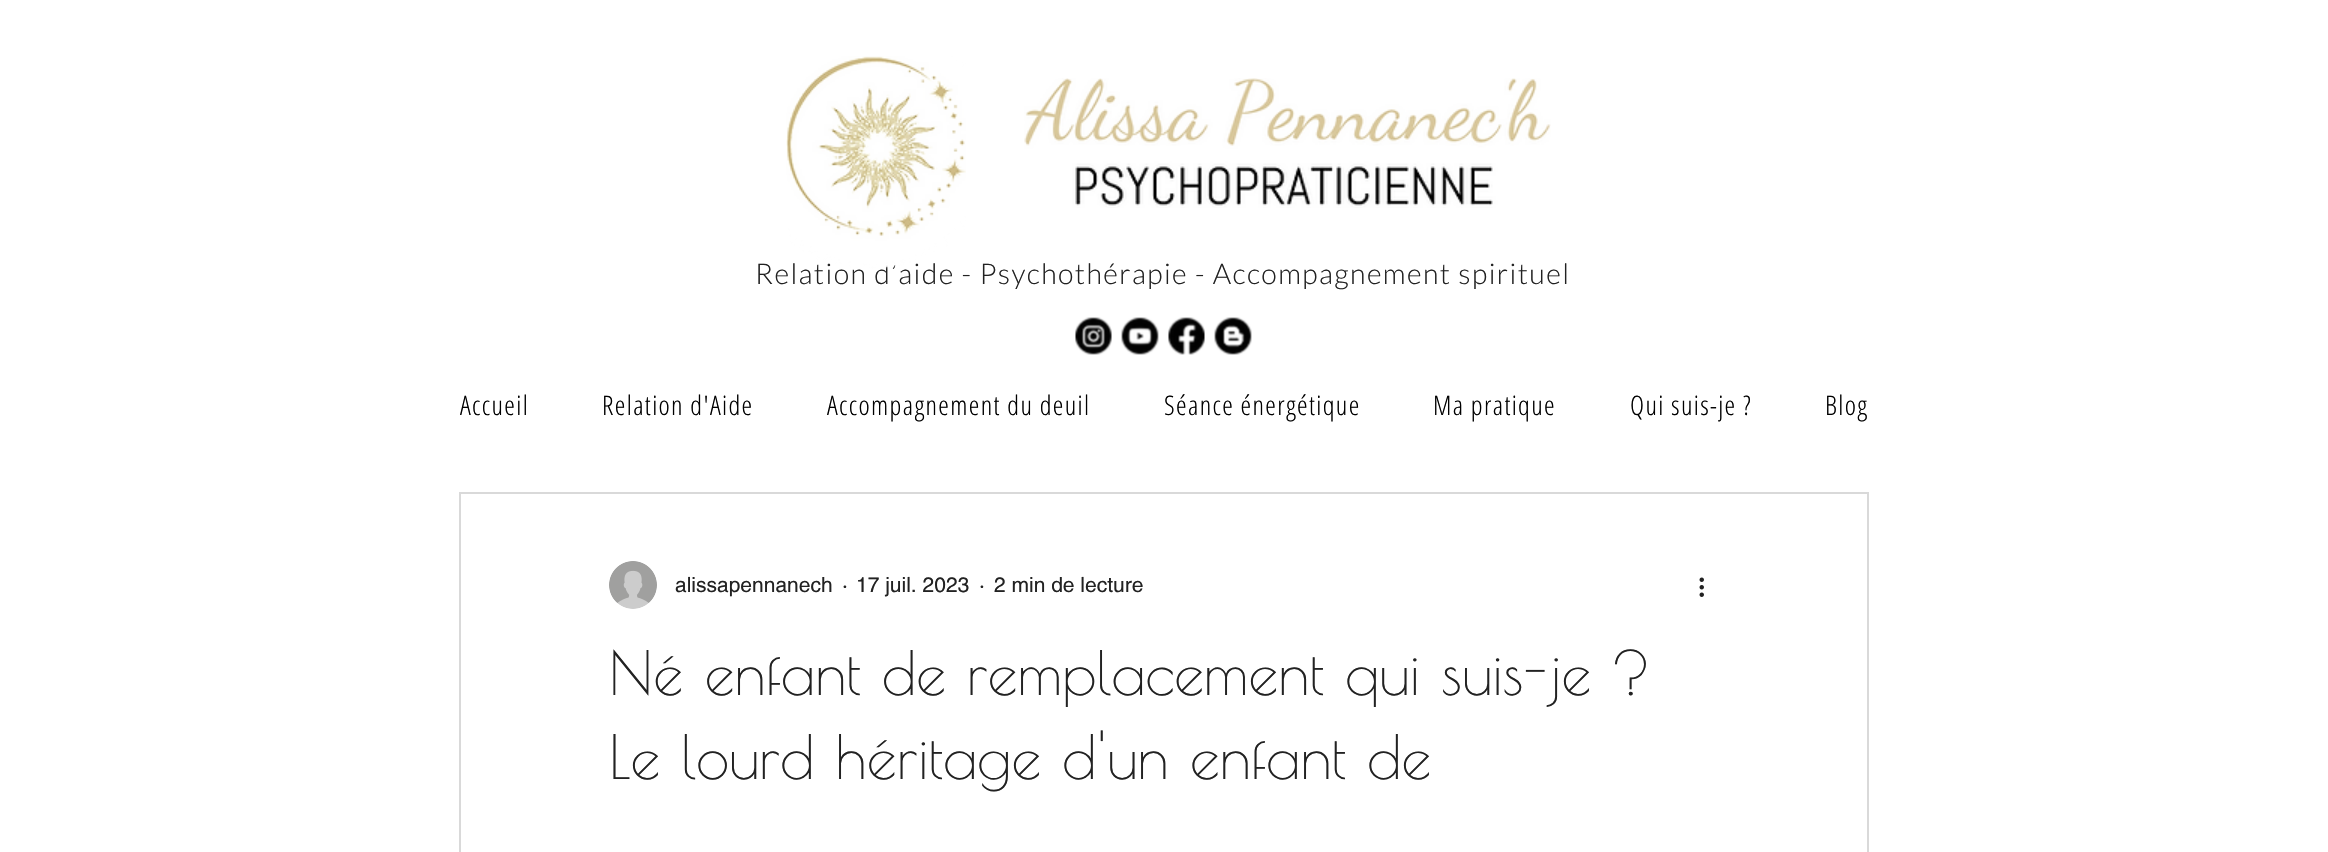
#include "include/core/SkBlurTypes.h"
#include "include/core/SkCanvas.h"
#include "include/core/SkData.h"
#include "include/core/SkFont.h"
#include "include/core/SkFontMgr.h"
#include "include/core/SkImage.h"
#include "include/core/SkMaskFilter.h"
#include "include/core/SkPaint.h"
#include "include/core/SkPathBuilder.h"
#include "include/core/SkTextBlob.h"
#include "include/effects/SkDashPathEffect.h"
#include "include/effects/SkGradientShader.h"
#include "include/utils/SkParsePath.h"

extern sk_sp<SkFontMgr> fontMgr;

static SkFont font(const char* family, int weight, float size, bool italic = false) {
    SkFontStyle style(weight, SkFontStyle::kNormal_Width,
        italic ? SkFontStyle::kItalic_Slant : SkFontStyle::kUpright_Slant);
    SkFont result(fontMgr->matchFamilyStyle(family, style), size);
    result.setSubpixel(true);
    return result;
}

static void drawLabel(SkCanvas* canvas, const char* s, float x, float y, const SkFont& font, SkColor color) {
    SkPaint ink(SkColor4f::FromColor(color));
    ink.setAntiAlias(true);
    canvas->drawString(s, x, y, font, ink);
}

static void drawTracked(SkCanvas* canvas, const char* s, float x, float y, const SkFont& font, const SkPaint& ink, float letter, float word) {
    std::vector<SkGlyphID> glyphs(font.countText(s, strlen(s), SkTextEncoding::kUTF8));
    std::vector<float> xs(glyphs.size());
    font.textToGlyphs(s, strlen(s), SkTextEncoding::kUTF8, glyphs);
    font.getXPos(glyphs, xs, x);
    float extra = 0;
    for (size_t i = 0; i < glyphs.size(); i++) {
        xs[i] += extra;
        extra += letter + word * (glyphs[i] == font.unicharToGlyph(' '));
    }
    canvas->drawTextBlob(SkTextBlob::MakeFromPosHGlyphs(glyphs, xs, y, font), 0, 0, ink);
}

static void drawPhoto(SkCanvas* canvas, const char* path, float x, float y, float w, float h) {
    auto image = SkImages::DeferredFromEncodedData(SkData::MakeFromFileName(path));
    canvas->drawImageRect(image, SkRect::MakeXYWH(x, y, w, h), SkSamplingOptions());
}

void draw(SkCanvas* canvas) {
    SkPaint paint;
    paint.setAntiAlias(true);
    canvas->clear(0xFFFFFFFF);
    SkFont font1 = font("Lato", 300, 28.5f);
    paint.setColor(0xFF222222);
    drawTracked(canvas, "Relation d’aide - Psychothérapie - Accompagnement spirituel", 755, 284, font1, paint, 1.42f, 0);
    drawPhoto(canvas, "assets/img1.png", 786, 56, 180, 213);
    drawPhoto(canvas, "assets/img2.png", 1024, 78, 527, 130);
    drawPhoto(canvas, "assets/img3.png", 1075, 317, 37, 38);
    drawPhoto(canvas, "assets/img4.png", 1121, 317, 38, 38);
    drawPhoto(canvas, "assets/img5.png", 1168, 317, 37, 38);
    drawPhoto(canvas, "assets/img6.png", 1214, 317, 38, 38);
    SkFont font2 = font("Open Sans Condensed", 300, 27);
    paint.setColor(0xFF000000);
    drawTracked(canvas, "Accueil", 460, 415, font2, paint, 1.35f, 0);
    drawTracked(canvas, "Relation d'Aide", 602, 415, font2, paint, 1.35f, 0);
    drawTracked(canvas, "Accompagnement du deuil", 827, 415, font2, paint, 1.35f, 0);
    drawTracked(canvas, "Séance énergétique", 1164, 415, font2, paint, 1.35f, 0);
    drawTracked(canvas, "Ma pratique", 1433, 415, font2, paint, 1.35f, 0);
    drawTracked(canvas, "Qui suis-je ?", 1630, 415, font2, paint, 1.35f, 0);
    drawTracked(canvas, "Blog", 1825, 415, font2, paint, 1.35f, 0);
    paint.setStroke(true);
    paint.setStrokeWidth(2);
    paint.setColor(0xFFD9D9D9);
    canvas->drawRect(SkRect::MakeXYWH(460, 493, 1408, 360), paint);
    drawPhoto(canvas, "assets/img7.png", 609, 561, 48, 48);
    SkFont font3 = font("helvetica", 400, 21);
    drawLabel(canvas, "alissapennanech", 675, 592, font3, 0xFF222222);
    drawLabel(canvas, "·", 842, 592, font3, 0xFF222222);
    drawLabel(canvas, "17 juil. 2023", 856, 592, font3, 0xFF222222);
    drawLabel(canvas, "·", 979, 592, font3, 0xFF222222);
    drawLabel(canvas, "2 min de lecture", 994, 592, font3, 0xFF222222);
    drawPhoto(canvas, "assets/img8.png", 1699, 577, 5, 20);
    SkFont font4 = font("Poiret One", 400, 60);
    drawLabel(canvas, "Né enfant de remplacement qui suis-je ?", 609, 695, font4, 0xFF222222);
    drawLabel(canvas, "Le lourd héritage d'un enfant de", 609, 779, font4, 0xFF222222);
}
